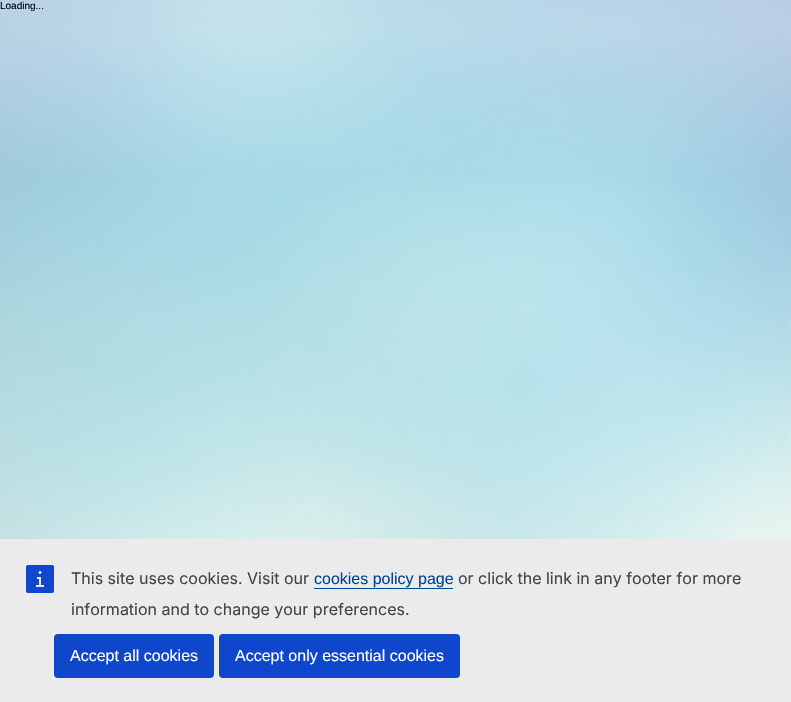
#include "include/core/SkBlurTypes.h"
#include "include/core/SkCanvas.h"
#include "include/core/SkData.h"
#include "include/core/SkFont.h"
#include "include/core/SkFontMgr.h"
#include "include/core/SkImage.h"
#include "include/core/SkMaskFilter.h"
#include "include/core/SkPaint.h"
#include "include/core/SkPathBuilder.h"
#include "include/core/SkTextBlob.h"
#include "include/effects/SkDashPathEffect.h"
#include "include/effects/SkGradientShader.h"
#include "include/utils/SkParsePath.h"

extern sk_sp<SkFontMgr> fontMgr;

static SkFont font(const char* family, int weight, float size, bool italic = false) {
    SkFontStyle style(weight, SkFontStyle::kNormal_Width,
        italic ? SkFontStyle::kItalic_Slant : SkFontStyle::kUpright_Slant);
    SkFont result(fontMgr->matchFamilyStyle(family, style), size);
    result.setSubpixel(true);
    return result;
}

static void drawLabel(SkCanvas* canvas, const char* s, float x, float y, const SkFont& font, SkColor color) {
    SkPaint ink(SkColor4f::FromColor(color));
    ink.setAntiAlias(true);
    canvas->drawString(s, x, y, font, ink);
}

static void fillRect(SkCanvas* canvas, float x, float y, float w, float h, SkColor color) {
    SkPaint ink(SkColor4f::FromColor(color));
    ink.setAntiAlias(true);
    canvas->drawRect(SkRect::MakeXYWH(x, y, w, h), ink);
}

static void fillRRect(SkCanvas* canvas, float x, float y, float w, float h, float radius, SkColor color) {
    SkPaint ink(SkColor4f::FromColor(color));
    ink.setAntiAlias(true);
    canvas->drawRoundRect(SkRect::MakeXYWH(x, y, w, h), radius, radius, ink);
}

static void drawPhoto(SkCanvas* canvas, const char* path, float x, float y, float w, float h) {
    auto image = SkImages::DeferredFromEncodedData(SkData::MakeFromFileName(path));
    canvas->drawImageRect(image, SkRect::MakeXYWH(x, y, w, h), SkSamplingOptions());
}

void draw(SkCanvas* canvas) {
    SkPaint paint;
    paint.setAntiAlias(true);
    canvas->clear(0xFFFFFFFF);
    drawPhoto(canvas, "assets/img1.png", 0, 0, 791, 539);
    SkFont font1 = font("Liberation Sans", 400, 10);
    drawLabel(canvas, "Loading...", 0, 9, font1, 0xFF000000);
    fillRect(canvas, 0, 539, 791, 163, 0xFFEBEBEB);
    drawPhoto(canvas, "assets/img2.png", 26, 565, 28, 28);
    SkFont font2 = font("Inter", 400, 16);
    drawLabel(canvas, "This site uses cookies. Visit our", 71, 584, font2, 0xFF444444);
    SkFont font3 = font("Liberation Sans", 400, 16);
    drawLabel(canvas, "cookies policy page", 314, 584, font3, 0xFF004494);
    fillRect(canvas, 314, 588, 139, 1, 0xFF004494);
    drawLabel(canvas, "or click the link in any footer for more", 458, 584, font2, 0xFF444444);
    drawLabel(canvas, "information and to change your preferences.", 71, 615, font2, 0xFF444444);
    fillRRect(canvas, 54, 634, 160, 44, 4, 0xFF0E47CB);
    drawLabel(canvas, "Accept all cookies", 70, 661, font3, 0xFFFFFFFF);
    fillRRect(canvas, 219, 634, 241, 44, 4, 0xFF0E47CB);
    drawLabel(canvas, "Accept only essential cookies", 235, 661, font3, 0xFFFFFFFF);
}
